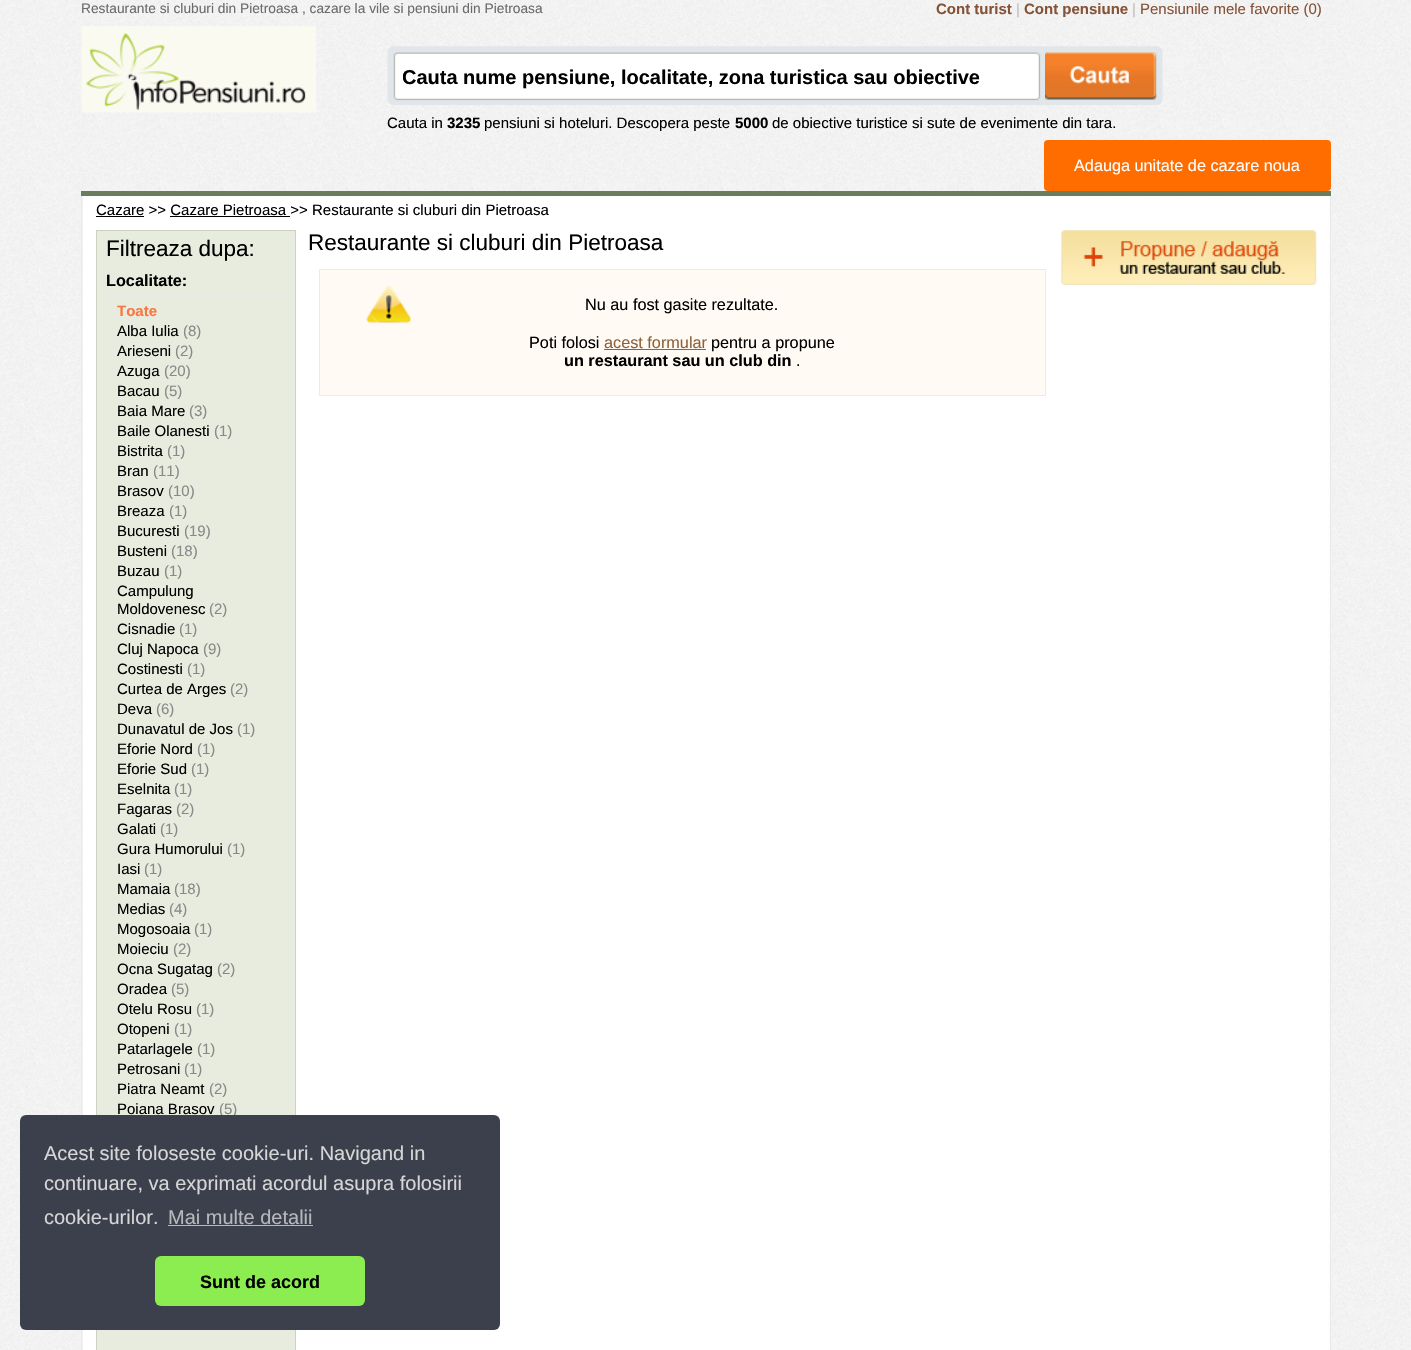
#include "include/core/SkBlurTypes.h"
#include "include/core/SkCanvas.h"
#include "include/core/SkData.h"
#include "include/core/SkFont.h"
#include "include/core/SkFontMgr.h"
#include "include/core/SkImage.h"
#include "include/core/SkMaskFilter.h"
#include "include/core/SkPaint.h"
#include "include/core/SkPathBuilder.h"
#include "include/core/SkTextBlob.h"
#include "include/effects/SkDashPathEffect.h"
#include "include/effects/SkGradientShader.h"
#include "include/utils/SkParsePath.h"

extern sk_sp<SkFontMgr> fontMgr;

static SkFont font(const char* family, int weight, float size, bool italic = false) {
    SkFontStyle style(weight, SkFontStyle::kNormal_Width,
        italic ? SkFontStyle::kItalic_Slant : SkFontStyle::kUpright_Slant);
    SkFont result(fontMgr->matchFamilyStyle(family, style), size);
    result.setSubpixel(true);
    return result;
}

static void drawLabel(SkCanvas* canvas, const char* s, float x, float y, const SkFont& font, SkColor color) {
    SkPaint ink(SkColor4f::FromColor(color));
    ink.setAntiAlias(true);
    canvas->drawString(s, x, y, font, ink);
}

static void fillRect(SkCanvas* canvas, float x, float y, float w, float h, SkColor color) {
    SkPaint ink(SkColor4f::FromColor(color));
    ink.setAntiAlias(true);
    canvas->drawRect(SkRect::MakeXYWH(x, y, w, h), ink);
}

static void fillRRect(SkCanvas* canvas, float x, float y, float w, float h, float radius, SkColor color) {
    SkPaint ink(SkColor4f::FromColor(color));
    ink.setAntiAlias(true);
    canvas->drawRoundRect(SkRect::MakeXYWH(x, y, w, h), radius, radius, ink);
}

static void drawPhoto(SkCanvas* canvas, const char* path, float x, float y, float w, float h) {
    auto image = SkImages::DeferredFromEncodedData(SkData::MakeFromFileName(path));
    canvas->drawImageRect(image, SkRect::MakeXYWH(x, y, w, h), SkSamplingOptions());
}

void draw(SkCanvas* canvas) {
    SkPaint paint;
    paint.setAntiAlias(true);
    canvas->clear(0xFFFFFFFF);
    drawPhoto(canvas, "assets/img1.png", 0, 0, 1411, 1350);
    fillRect(canvas, 81, 191, 1250, 5, 0xFF687E5C);
    SkFont font1 = font("Liberation Sans", 400, 13.75f);
    drawLabel(canvas, "Restaurante si cluburi din Pietroasa , cazare la vile si pensiuni din Pietroasa", 81, 13, font1, 0xFF6C6B6B);
    SkFont font2 = font("Liberation Sans", 700, 15);
    drawLabel(canvas, "Cont turist", 936, 14, font2, 0xFF855337);
    SkFont font3 = font("Liberation Sans", 400, 15);
    drawLabel(canvas, "|", 1016, 14, font3, 0xFFBEBEBE);
    drawLabel(canvas, "Cont pensiune", 1024, 14, font2, 0xFF855337);
    drawLabel(canvas, "|", 1132, 14, font3, 0xFFBEBEBE);
    drawLabel(canvas, "Pensiunile mele favorite (0)", 1140, 14, font3, 0xFF855337);
    drawPhoto(canvas, "assets/img2.png", 81, 26, 235, 87);
    drawPhoto(canvas, "assets/img3.png", 387, 46, 776, 59);
    canvas->save();
    canvas->clipRect(SkRect::MakeXYWH(403, 68, 618, 22));
    SkFont font4 = font("Liberation Sans", 700, 20);
    drawLabel(canvas, "Cauta nume pensiune, localitate, zona turistica sau obiective", 402, 84, font4, 0xFF000000);
    canvas->restore();
    drawPhoto(canvas, "assets/img4.png", 1045, 52, 112, 48);
    drawLabel(canvas, "Cauta in", 387, 128, font3, 0xFF000000);
    drawLabel(canvas, "3235", 447, 128, font2, 0xFF000000);
    drawLabel(canvas, "pensiuni si hoteluri. Descopera peste", 484, 128, font3, 0xFF000000);
    drawLabel(canvas, "5000", 735, 128, font2, 0xFF000000);
    drawLabel(canvas, "de obiective turistice si sute de evenimente din tara.", 772, 128, font3, 0xFF000000);
    fillRRect(canvas, 1044, 140, 287, 51, 4, 0xFFFF6C00);
    SkFont font5 = font("Liberation Sans", 400, 16.25f);
    drawLabel(canvas, "Adauga unitate de cazare noua", 1074, 171, font5, 0xFFFFFFFF);
    drawPhoto(canvas, "assets/img5.png", 81, 196, 1250, 1154);
    drawLabel(canvas, "Cazare >> Cazare Pietroasa >> Restaurante si cluburi din Pietroasa", 96, 215, font3, 0xFF000000);
    fillRect(canvas, 96, 216, 48, 1, 0xFF000000);
    fillRect(canvas, 170, 216, 120, 1, 0xFF000000);
    paint.setColor(0xFFE8ECDE);
    canvas->drawRect(SkRect::MakeXYWH(96.5f, 230.5f, 199, 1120), paint);
    paint.setStroke(true);
    paint.setStrokeWidth(1);
    paint.setColor(0xFFCED1C0);
    canvas->drawRect(SkRect::MakeXYWH(96.5f, 230.5f, 199, 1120), paint);
    SkFont font6 = font("Liberation Sans", 400, 22.5f);
    drawLabel(canvas, "Filtreaza dupa:", 106, 256, font6, 0xFF000000);
    fillRect(canvas, 106, 294, 180, 1, 0xFFEBEBEB);
    SkFont font7 = font("Liberation Sans", 700, 16.25f);
    drawLabel(canvas, "Localitate:", 106, 286, font7, 0xFF000000);
    drawLabel(canvas, "Toate", 117, 316, font2, 0xFFF67741);
    drawLabel(canvas, "Alba Iulia", 117, 336, font3, 0xFF000000);
    drawLabel(canvas, "(8)", 183, 336, font3, 0xFF898989);
    drawLabel(canvas, "Arieseni", 117, 356, font3, 0xFF000000);
    drawLabel(canvas, "(2)", 175, 356, font3, 0xFF898989);
    drawLabel(canvas, "Azuga", 117, 376, font3, 0xFF000000);
    drawLabel(canvas, "(20)", 164, 376, font3, 0xFF898989);
    drawLabel(canvas, "Bacau", 117, 396, font3, 0xFF000000);
    drawLabel(canvas, "(5)", 164, 396, font3, 0xFF898989);
    drawLabel(canvas, "Baia Mare", 117, 416, font3, 0xFF000000);
    drawLabel(canvas, "(3)", 189, 416, font3, 0xFF898989);
    drawLabel(canvas, "Baile Olanesti", 117, 436, font3, 0xFF000000);
    drawLabel(canvas, "(1)", 214, 436, font3, 0xFF898989);
    drawLabel(canvas, "Bistrita", 117, 456, font3, 0xFF000000);
    drawLabel(canvas, "(1)", 167, 456, font3, 0xFF898989);
    drawLabel(canvas, "Bran", 117, 476, font3, 0xFF000000);
    drawLabel(canvas, "(11)", 153, 476, font3, 0xFF898989);
    drawLabel(canvas, "Brasov", 117, 496, font3, 0xFF000000);
    drawLabel(canvas, "(10)", 168, 496, font3, 0xFF898989);
    drawLabel(canvas, "Breaza", 117, 516, font3, 0xFF000000);
    drawLabel(canvas, "(1)", 169, 516, font3, 0xFF898989);
    drawLabel(canvas, "Bucuresti", 117, 536, font3, 0xFF000000);
    drawLabel(canvas, "(19)", 184, 536, font3, 0xFF898989);
    drawLabel(canvas, "Busteni", 117, 556, font3, 0xFF000000);
    drawLabel(canvas, "(18)", 171, 556, font3, 0xFF898989);
    drawLabel(canvas, "Buzau", 117, 576, font3, 0xFF000000);
    drawLabel(canvas, "(1)", 164, 576, font3, 0xFF898989);
    drawLabel(canvas, "Campulung", 117, 596, font3, 0xFF000000);
    drawLabel(canvas, "Moldovenesc", 117, 614, font3, 0xFF000000);
    drawLabel(canvas, "(2)", 209, 614, font3, 0xFF898989);
    drawLabel(canvas, "Cisnadie", 117, 634, font3, 0xFF000000);
    drawLabel(canvas, "(1)", 179, 634, font3, 0xFF898989);
    drawLabel(canvas, "Cluj Napoca", 117, 654, font3, 0xFF000000);
    drawLabel(canvas, "(9)", 203, 654, font3, 0xFF898989);
    drawLabel(canvas, "Costinesti", 117, 674, font3, 0xFF000000);
    drawLabel(canvas, "(1)", 187, 674, font3, 0xFF898989);
    drawLabel(canvas, "Curtea de Arges", 117, 694, font3, 0xFF000000);
    drawLabel(canvas, "(2)", 230, 694, font3, 0xFF898989);
    drawLabel(canvas, "Deva", 117, 714, font3, 0xFF000000);
    drawLabel(canvas, "(6)", 156, 714, font3, 0xFF898989);
    drawLabel(canvas, "Dunavatul de Jos", 117, 734, font3, 0xFF000000);
    drawLabel(canvas, "(1)", 237, 734, font3, 0xFF898989);
    drawLabel(canvas, "Eforie Nord", 117, 754, font3, 0xFF000000);
    drawLabel(canvas, "(1)", 197, 754, font3, 0xFF898989);
    drawLabel(canvas, "Eforie Sud", 117, 774, font3, 0xFF000000);
    drawLabel(canvas, "(1)", 191, 774, font3, 0xFF898989);
    drawLabel(canvas, "Eselnita", 117, 794, font3, 0xFF000000);
    drawLabel(canvas, "(1)", 174, 794, font3, 0xFF898989);
    drawLabel(canvas, "Fagaras", 117, 814, font3, 0xFF000000);
    drawLabel(canvas, "(2)", 176, 814, font3, 0xFF898989);
    drawLabel(canvas, "Galati", 117, 834, font3, 0xFF000000);
    drawLabel(canvas, "(1)", 160, 834, font3, 0xFF898989);
    drawLabel(canvas, "Gura Humorului", 117, 854, font3, 0xFF000000);
    drawLabel(canvas, "(1)", 227, 854, font3, 0xFF898989);
    drawLabel(canvas, "Iasi", 117, 874, font3, 0xFF000000);
    drawLabel(canvas, "(1)", 144, 874, font3, 0xFF898989);
    drawLabel(canvas, "Mamaia", 117, 894, font3, 0xFF000000);
    drawLabel(canvas, "(18)", 174, 894, font3, 0xFF898989);
    drawLabel(canvas, "Medias", 117, 914, font3, 0xFF000000);
    drawLabel(canvas, "(4)", 169, 914, font3, 0xFF898989);
    drawLabel(canvas, "Mogosoaia", 117, 934, font3, 0xFF000000);
    drawLabel(canvas, "(1)", 194, 934, font3, 0xFF898989);
    drawLabel(canvas, "Moieciu", 117, 954, font3, 0xFF000000);
    drawLabel(canvas, "(2)", 173, 954, font3, 0xFF898989);
    drawLabel(canvas, "Ocna Sugatag", 117, 974, font3, 0xFF000000);
    drawLabel(canvas, "(2)", 217, 974, font3, 0xFF898989);
    drawLabel(canvas, "Oradea", 117, 994, font3, 0xFF000000);
    drawLabel(canvas, "(5)", 171, 994, font3, 0xFF898989);
    drawLabel(canvas, "Otelu Rosu", 117, 1014, font3, 0xFF000000);
    drawLabel(canvas, "(1)", 196, 1014, font3, 0xFF898989);
    drawLabel(canvas, "Otopeni", 117, 1034, font3, 0xFF000000);
    drawLabel(canvas, "(1)", 174, 1034, font3, 0xFF898989);
    drawLabel(canvas, "Patarlagele", 117, 1054, font3, 0xFF000000);
    drawLabel(canvas, "(1)", 197, 1054, font3, 0xFF898989);
    drawLabel(canvas, "Petrosani", 117, 1074, font3, 0xFF000000);
    drawLabel(canvas, "(1)", 184, 1074, font3, 0xFF898989);
    drawLabel(canvas, "Piatra Neamt", 117, 1094, font3, 0xFF000000);
    drawLabel(canvas, "(2)", 209, 1094, font3, 0xFF898989);
    drawLabel(canvas, "Poiana Brasov", 117, 1114, font3, 0xFF000000);
    drawLabel(canvas, "(5)", 219, 1114, font3, 0xFF898989);
    drawLabel(canvas, "Restaurante si cluburi din Pietroasa", 308, 250, font6, 0xFF000000);
    fillRect(canvas, 320, 270, 725, 125, 0xFFFFFBF4);
    drawPhoto(canvas, "assets/img6.png", 366, 285, 46, 38);
    paint.setColor(0xFFF1EADF);
    canvas->drawRect(SkRect::MakeXYWH(319.5f, 269.5f, 726, 126), paint);
    drawLabel(canvas, "Nu au fost gasite rezultate.", 585, 310, font5, 0xFF000000);
    drawLabel(canvas, "Poti folosi", 529, 348, font5, 0xFF000000);
    drawLabel(canvas, "acest formular", 604, 348, font5, 0xFF8E613A);
    fillRect(canvas, 604, 349, 102, 1, 0xFF8E613A);
    drawLabel(canvas, "pentru a propune", 711, 348, font5, 0xFF000000);
    drawLabel(canvas, "un restaurant sau un club din", 564, 366, font7, 0xFF000000);
    drawLabel(canvas, ".", 796, 366, font5, 0xFF000000);
    drawPhoto(canvas, "assets/img7.png", 1061, 230, 256, 55);
    fillRRect(canvas, 20, 1115, 480, 215, 6, 0xFF3C404D);
    SkFont font8 = font("Liberation Sans", 400, 20);
    drawLabel(canvas, "Acest site foloseste cookie-uri. Navigand in", 44, 1160, font8, 0xFFD6D6D6);
    drawLabel(canvas, "continuare, va exprimati acordul asupra folosirii", 44, 1190, font8, 0xFFD6D6D6);
    drawLabel(canvas, "cookie-urilor.", 44, 1224, font8, 0xFFD6D6D6);
    drawLabel(canvas, "Mai multe detalii", 168, 1224, font8, 0xFFB7B8BB);
    fillRect(canvas, 168, 1225, 145, 1, 0xFFB7B8BB);
    fillRRect(canvas, 155, 1256, 210, 50, 6, 0xFF8BED4F);
    SkFont font9 = font("Liberation Sans", 700, 18);
    drawLabel(canvas, "Sunt de acord", 200, 1288, font9, 0xFF000000);
}
